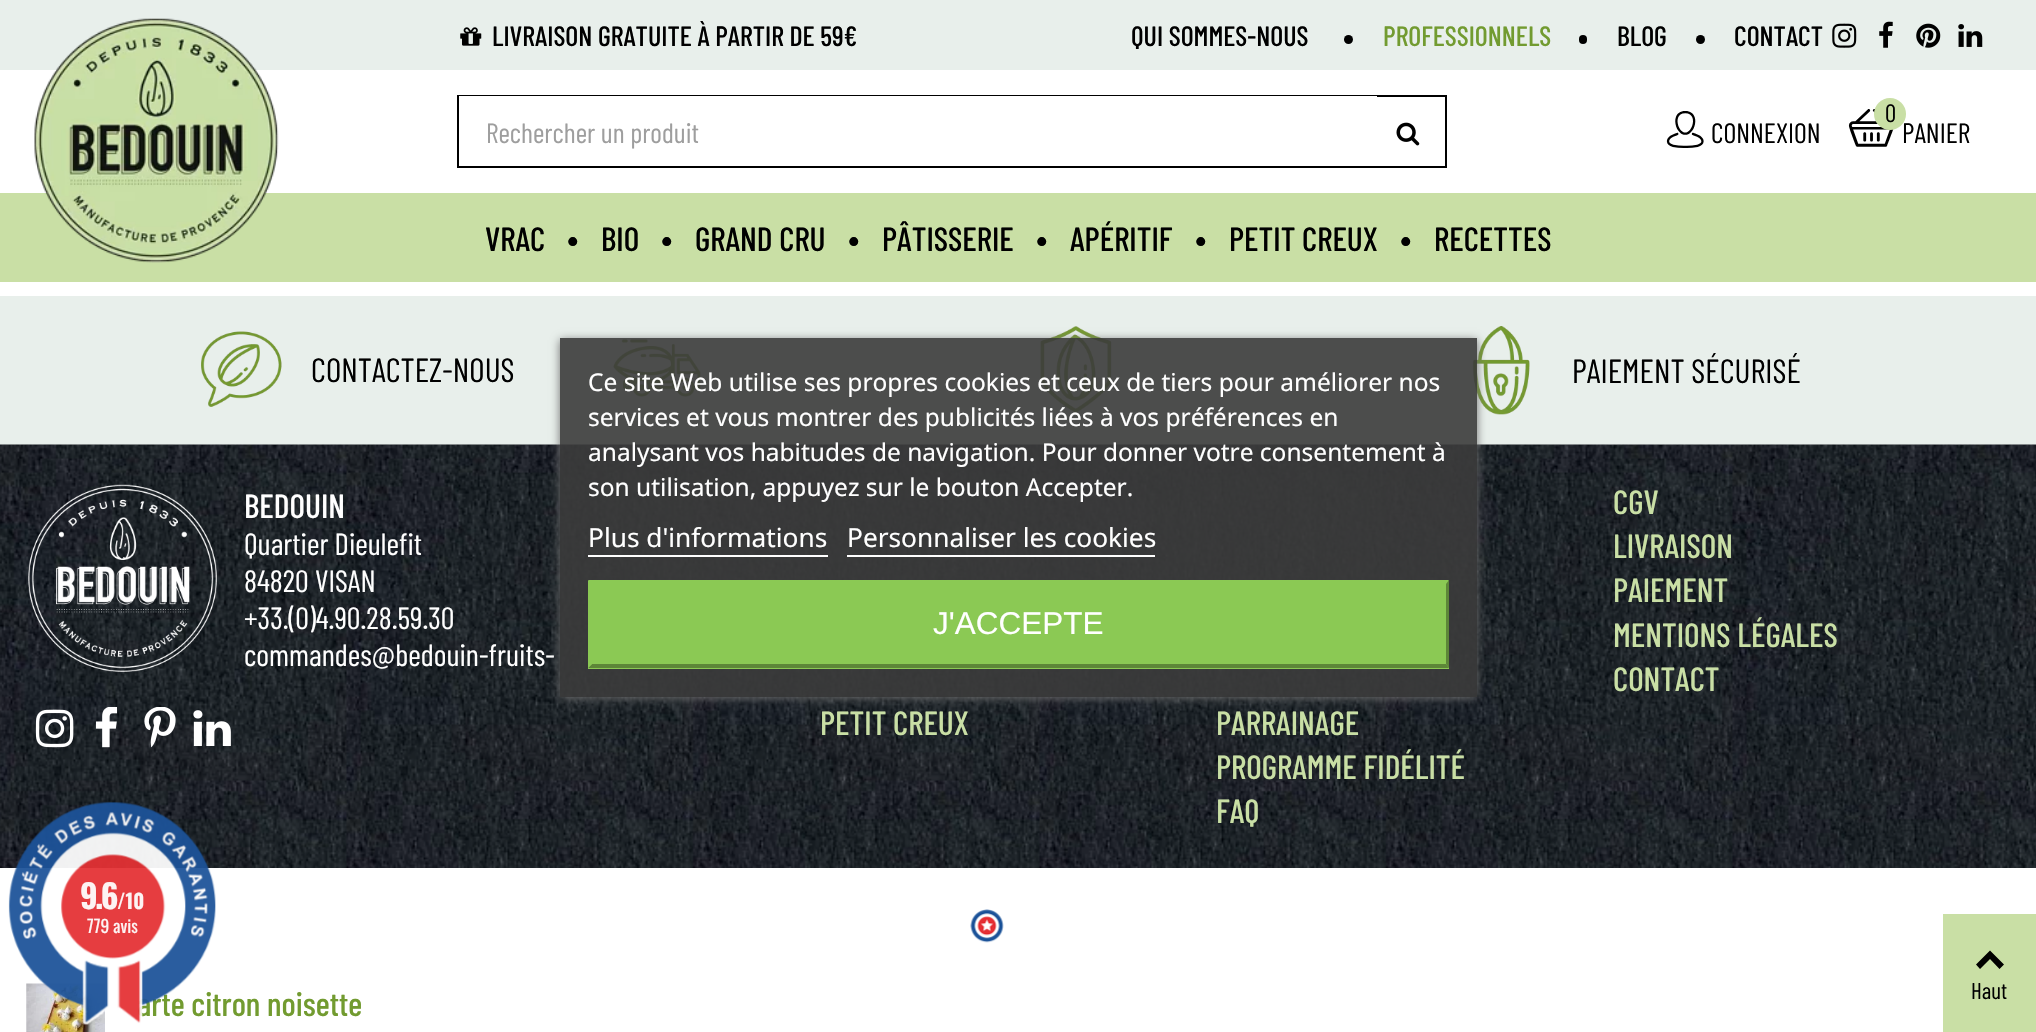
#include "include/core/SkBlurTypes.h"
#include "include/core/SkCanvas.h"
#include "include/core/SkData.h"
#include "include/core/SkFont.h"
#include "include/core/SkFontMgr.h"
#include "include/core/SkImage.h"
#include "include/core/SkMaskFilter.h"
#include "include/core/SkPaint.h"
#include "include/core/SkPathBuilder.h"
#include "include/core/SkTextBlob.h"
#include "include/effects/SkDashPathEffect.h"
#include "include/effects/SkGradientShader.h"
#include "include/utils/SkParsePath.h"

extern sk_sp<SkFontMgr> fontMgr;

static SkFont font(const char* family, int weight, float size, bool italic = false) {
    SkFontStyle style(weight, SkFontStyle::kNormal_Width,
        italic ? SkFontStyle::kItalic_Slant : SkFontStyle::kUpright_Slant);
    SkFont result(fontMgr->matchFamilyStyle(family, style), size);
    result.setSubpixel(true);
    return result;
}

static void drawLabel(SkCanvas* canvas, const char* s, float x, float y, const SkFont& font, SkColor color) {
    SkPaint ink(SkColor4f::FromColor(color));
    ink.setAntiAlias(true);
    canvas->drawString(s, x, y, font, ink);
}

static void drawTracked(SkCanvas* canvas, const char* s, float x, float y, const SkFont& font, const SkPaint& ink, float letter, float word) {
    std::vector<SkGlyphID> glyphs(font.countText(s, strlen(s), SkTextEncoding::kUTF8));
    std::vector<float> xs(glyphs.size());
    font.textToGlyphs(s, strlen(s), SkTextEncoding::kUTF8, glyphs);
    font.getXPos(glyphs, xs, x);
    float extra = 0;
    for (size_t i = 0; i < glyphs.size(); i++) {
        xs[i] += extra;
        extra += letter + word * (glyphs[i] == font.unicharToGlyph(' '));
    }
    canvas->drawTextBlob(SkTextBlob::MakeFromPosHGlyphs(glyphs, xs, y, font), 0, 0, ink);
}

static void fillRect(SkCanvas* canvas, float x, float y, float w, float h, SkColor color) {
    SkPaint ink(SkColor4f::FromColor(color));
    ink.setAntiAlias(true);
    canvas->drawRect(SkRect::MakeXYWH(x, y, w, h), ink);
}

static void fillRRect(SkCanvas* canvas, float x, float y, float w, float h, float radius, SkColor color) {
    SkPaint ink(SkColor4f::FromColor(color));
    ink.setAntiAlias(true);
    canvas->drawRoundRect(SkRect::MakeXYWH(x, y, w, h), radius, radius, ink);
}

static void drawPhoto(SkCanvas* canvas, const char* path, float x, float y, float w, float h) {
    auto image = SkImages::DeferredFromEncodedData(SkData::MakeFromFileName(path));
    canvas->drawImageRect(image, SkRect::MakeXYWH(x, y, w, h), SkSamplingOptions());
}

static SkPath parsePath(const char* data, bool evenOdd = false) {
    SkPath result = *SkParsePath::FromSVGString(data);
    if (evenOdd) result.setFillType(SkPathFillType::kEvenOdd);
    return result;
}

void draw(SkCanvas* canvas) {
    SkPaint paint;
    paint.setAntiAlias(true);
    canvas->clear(0xFFFFFFFF);
    fillRect(canvas, 0, 296, 2036, 149, 0xFFE8EFEB);
    drawPhoto(canvas, "assets/img15.png", 0, 444, 2036, 424);
    drawPhoto(canvas, "assets/img22.png", 26, 983, 79, 49);
    SkFont font1 = font("Barlow Condensed", 500, 33.5f);
    drawLabel(canvas, "arte citron noisette", 137, 1016, font1, 0xFF729B30);
    drawPhoto(canvas, "assets/img1.png", 8, 802, 208, 223);
    SkFont font2 = font("Oswald", 700, 33);
    paint.setColor(0xFFFDF3F3);
    drawTracked(canvas, "9.6", 80, 909, font2, paint, -2.5f, 0);
    SkFont font3 = font("Oswald", 700, 20);
    drawLabel(canvas, "/10", 117, 909, font3, 0xFFFDF3F3);
    SkFont font4 = font("Oswald", 400, 17.5f);
    drawLabel(canvas, "779 avis", 87, 933, font4, 0xFFFDF3F3);
    fillRect(canvas, 0, 0, 2036, 70, 0xFFE8EFEB);
    drawPhoto(canvas, "assets/img2.png", 460, 27, 22, 19);
    SkFont font5 = font("Barlow Condensed", 500, 28);
    drawLabel(canvas, "LIVRAISON GRATUITE À PARTIR DE 59€", 492, 46, font5, 0xFF000000);
    drawLabel(canvas, "QUI SOMMES-NOUS", 1131, 46, font5, 0xFF000000);
    paint.setColor(0xFF000000);
    canvas->drawCircle(1348.5f, 39.5f, 4.5f, paint);
    drawLabel(canvas, "PROFESSIONNELS", 1383, 46, font5, 0xFF729B30);
    fillRRect(canvas, 1579, 35, 8, 9, 4, 0xFF000000);
    drawLabel(canvas, "BLOG", 1617, 46, font5, 0xFF000000);
    canvas->drawCircle(1700.5f, 39.5f, 4.5f, paint);
    drawLabel(canvas, "CONTACT", 1734, 46, font5, 0xFF000000);
    drawPhoto(canvas, "assets/img3.png", 1832, 23, 25, 25);
    drawPhoto(canvas, "assets/img4.png", 1879, 21, 14, 27);
    drawPhoto(canvas, "assets/img5.png", 1916, 23, 25, 25);
    drawPhoto(canvas, "assets/img6.png", 1958, 24, 25, 23);
    fillRect(canvas, 0, 193, 2036, 89, 0xFFC9DFA5);
    drawPhoto(canvas, "assets/img7.png", 34, 18, 245, 245);
    paint.setStroke(true);
    paint.setStrokeWidth(2);
    canvas->drawRect(SkRect::MakeXYWH(458, 96, 988, 71), paint);
    fillRect(canvas, 459, 96, 918, 1, 0xFFFFFFFF);
    SkFont font6 = font("Barlow Condensed", 400, 28);
    drawLabel(canvas, "Rechercher un produit", 486, 143, font6, 0xFF9E9E9E);
    drawPhoto(canvas, "assets/img8.png", 1396, 122, 24, 24);
    drawPhoto(canvas, "assets/img9.png", 1666, 111, 38, 37);
    drawLabel(canvas, "CONNEXION", 1711, 143, font6, 0xFF000000);
    drawPhoto(canvas, "assets/img10.png", 1848, 109, 46, 38);
    drawLabel(canvas, "PANIER", 1902, 143, font6, 0xFF000000);
    paint.setStroke(false);
    paint.setColor(0xFFC9DFA5);
    canvas->drawCircle(1890, 114, 16, paint);
    SkFont font7 = font("Barlow Condensed", 400, 25);
    drawLabel(canvas, "0", 1885, 122, font7, 0xFF000000);
    drawLabel(canvas, "VRAC", 485, 251, font1, 0xFF000000);
    SkFont font8 = font("Barlow Condensed", 400, 39);
    drawLabel(canvas, "•", 567, 252, font8, 0xFF000000);
    drawLabel(canvas, "BIO", 601, 251, font1, 0xFF000000);
    drawLabel(canvas, "•", 661, 252, font8, 0xFF000000);
    drawLabel(canvas, "GRAND CRU", 695, 251, font1, 0xFF000000);
    drawLabel(canvas, "•", 848, 252, font8, 0xFF000000);
    drawLabel(canvas, "PÂTISSERIE", 882, 251, font1, 0xFF000000);
    drawLabel(canvas, "•", 1036, 252, font8, 0xFF000000);
    drawLabel(canvas, "APÉRITIF", 1070, 251, font1, 0xFF000000);
    drawLabel(canvas, "•", 1195, 252, font8, 0xFF000000);
    drawLabel(canvas, "PETIT CREUX", 1229, 251, font1, 0xFF000000);
    drawLabel(canvas, "•", 1400, 252, font8, 0xFF000000);
    drawLabel(canvas, "RECETTES", 1434, 251, font1, 0xFF000000);
    drawPhoto(canvas, "assets/img11.png", 201, 331, 81, 76);
    SkFont font9 = font("Barlow Condensed", 400, 33.5f);
    drawLabel(canvas, "CONTACTEZ-NOUS", 311, 382, font9, 0xFF000000);
    drawPhoto(canvas, "assets/img12.png", 613, 339, 88, 58);
    drawPhoto(canvas, "assets/img13.png", 1040, 326, 72, 87);
    drawPhoto(canvas, "assets/img14.png", 1472, 326, 58, 89);
    drawLabel(canvas, "PAIEMENT SÉCURISÉ", 1572, 383, font9, 0xFF000000);
    drawPhoto(canvas, "assets/img16.png", 28, 484, 189, 188);
    drawLabel(canvas, "BEDOUIN", 244, 518, font1, 0xFFFFFFFF);
    SkFont font10 = font("Barlow Condensed", 400, 30.75f);
    drawLabel(canvas, "Quartier Dieulefit", 244, 555, font10, 0xFFFFFFFF);
    drawLabel(canvas, "84820 VISAN", 244, 592, font10, 0xFFFFFFFF);
    drawLabel(canvas, "+33.(0)4.90.28.59.30", 244, 629, font10, 0xFFFFFFFF);
    drawLabel(canvas, "commandes@bedouin-fruits-", 244, 666, font10, 0xFFFFFFFF);
    drawPhoto(canvas, "assets/img17.png", 35, 709, 39, 39);
    drawPhoto(canvas, "assets/img18.png", 95, 707, 23, 41);
    drawPhoto(canvas, "assets/img19.png", 144, 707, 32, 41);
    drawPhoto(canvas, "assets/img20.png", 193, 710, 38, 36);
    drawLabel(canvas, "CGV", 1613, 514, font1, 0xFFC9DFA5);
    drawLabel(canvas, "LIVRAISON", 1613, 558, font1, 0xFFC9DFA5);
    drawLabel(canvas, "PAIEMENT", 1613, 602, font1, 0xFFC9DFA5);
    drawLabel(canvas, "MENTIONS LÉGALES", 1613, 647, font1, 0xFFC9DFA5);
    drawLabel(canvas, "CONTACT", 1613, 691, font1, 0xFFC9DFA5);
    drawLabel(canvas, "PETIT CREUX", 820, 735, font1, 0xFFC9DFA5);
    drawLabel(canvas, "PARRAINAGE", 1216, 735, font1, 0xFFC9DFA5);
    drawLabel(canvas, "PROGRAMME FIDÉLITÉ", 1216, 779, font1, 0xFFC9DFA5);
    drawLabel(canvas, "FAQ", 1216, 823, font1, 0xFFC9DFA5);
    canvas->save();
    canvas->clipPath(parsePath("M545 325H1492V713H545ZM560 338H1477V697H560Z", true), true);
    paint.setColor(0xFF707070);
    paint.setMaskFilter(SkMaskFilter::MakeBlur(kNormal_SkBlurStyle, 4.5f));
    canvas->drawRect(SkRect::MakeXYWH(560, 340, 917, 358), paint);
    paint.setMaskFilter(nullptr);
    canvas->restore();
    fillRect(canvas, 560, 338, 917, 359, 0xE63B3B3B);
    SkFont font11 = font("Noto Sans", 400, 24.5f);
    drawLabel(canvas, "Ce site Web utilise ses propres cookies et ceux de tiers pour améliorer nos", 588, 391, font11, 0xFFFFFFFF);
    drawLabel(canvas, "services et vous montrer des publicités liées à vos préférences en", 588, 426, font11, 0xFFFFFFFF);
    drawLabel(canvas, "analysant vos habitudes de navigation. Pour donner votre consentement à", 588, 461, font11, 0xFFFFFFFF);
    drawLabel(canvas, "son utilisation, appuyez sur le bouton Accepter.", 588, 496, font11, 0xFFFFFFFF);
    SkFont font12 = font("Noto Sans", 400, 26.25f);
    drawLabel(canvas, "Plus d'informations", 588, 547, font12, 0xFFFFFFFF);
    fillRect(canvas, 588, 555, 240, 2, 0xFFFFFFFF);
    drawLabel(canvas, "Personnaliser les cookies", 847, 547, font12, 0xFFFFFFFF);
    fillRect(canvas, 847, 555, 308, 2, 0xFFFFFFFF);
    fillRect(canvas, 588, 581, 861, 88, 0xFF8BC954);
    paint.setColor(0xFF8BC954);
    canvas->drawPath(parsePath("M588 580H1449L1446 584H592Z"), paint);
    paint.setColor(0xFF5D8638);
    canvas->drawPath(parsePath("M1449 580V668L1446 664V584Z"), paint);
    canvas->drawPath(parsePath("M1449 668H588L592 664H1446Z"), paint);
    paint.setColor(0xFF8BC954);
    canvas->drawPath(parsePath("M588 668V580L592 584V664Z"), paint);
    SkFont font13 = font("Liberation Sans", 400, 31.5f);
    drawLabel(canvas, "J'ACCEPTE", 933, 634, font13, 0xFFFFFFFF);
    drawPhoto(canvas, "assets/img21.png", 970, 909, 34, 34);
    fillRect(canvas, 1943, 914, 93, 118, 0xFFC9DFA5);
    paint.setColor(0xFF000000);
    canvas->drawPath(parsePath("M1976 964.5L1990 950.5L2004 964.5L1999.5 969L1990 959L1980 969Z"), paint);
    SkFont font14 = font("Barlow Condensed", 400, 23);
    drawLabel(canvas, "Haut", 1971, 999, font14, 0xFF000000);
}
